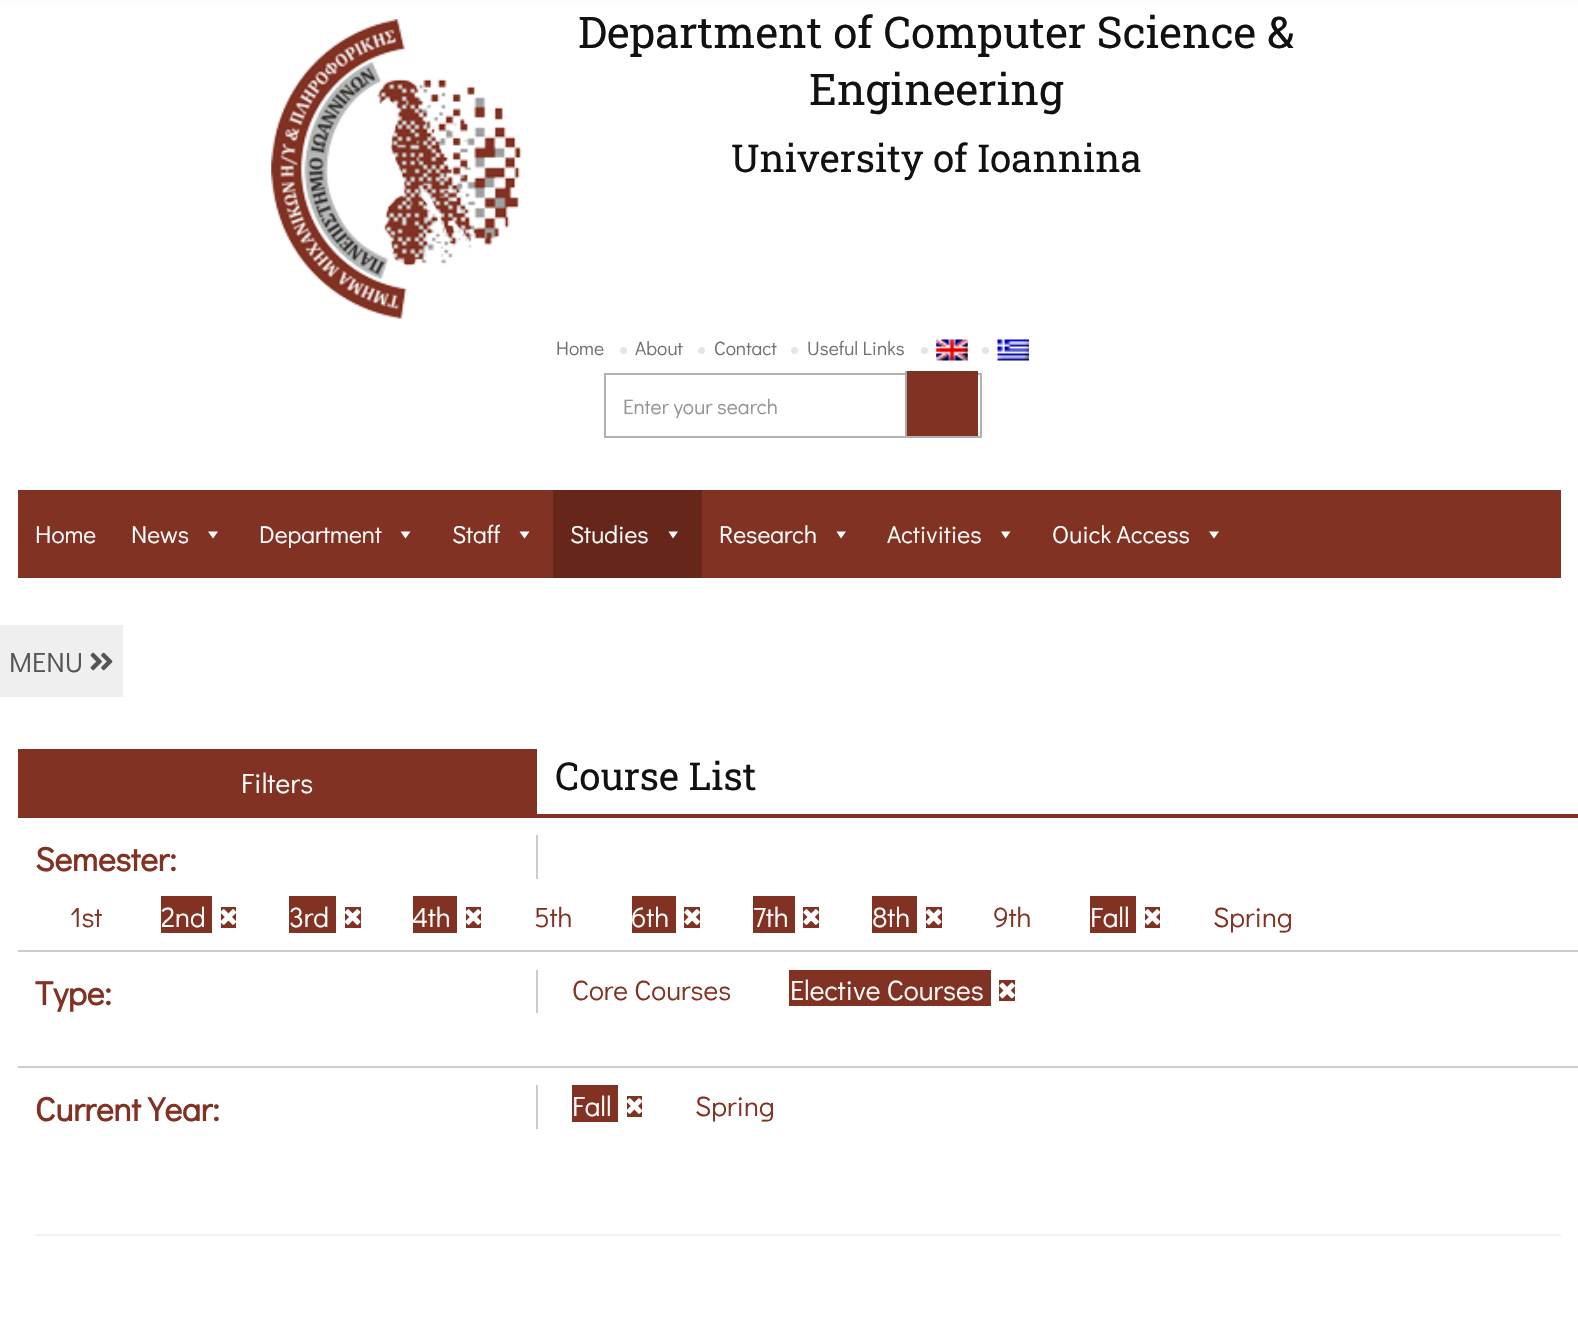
#include "include/core/SkBlurTypes.h"
#include "include/core/SkCanvas.h"
#include "include/core/SkData.h"
#include "include/core/SkFont.h"
#include "include/core/SkFontMgr.h"
#include "include/core/SkImage.h"
#include "include/core/SkMaskFilter.h"
#include "include/core/SkPaint.h"
#include "include/core/SkPathBuilder.h"
#include "include/core/SkTextBlob.h"
#include "include/effects/SkDashPathEffect.h"
#include "include/effects/SkGradientShader.h"
#include "include/utils/SkParsePath.h"

extern sk_sp<SkFontMgr> fontMgr;

static SkFont font(const char* family, int weight, float size, bool italic = false) {
    SkFontStyle style(weight, SkFontStyle::kNormal_Width,
        italic ? SkFontStyle::kItalic_Slant : SkFontStyle::kUpright_Slant);
    SkFont result(fontMgr->matchFamilyStyle(family, style), size);
    result.setSubpixel(true);
    return result;
}

static void drawLabel(SkCanvas* canvas, const char* s, float x, float y, const SkFont& font, SkColor color) {
    SkPaint ink(SkColor4f::FromColor(color));
    ink.setAntiAlias(true);
    canvas->drawString(s, x, y, font, ink);
}

static void drawTracked(SkCanvas* canvas, const char* s, float x, float y, const SkFont& font, const SkPaint& ink, float letter, float word) {
    std::vector<SkGlyphID> glyphs(font.countText(s, strlen(s), SkTextEncoding::kUTF8));
    std::vector<float> xs(glyphs.size());
    font.textToGlyphs(s, strlen(s), SkTextEncoding::kUTF8, glyphs);
    font.getXPos(glyphs, xs, x);
    float extra = 0;
    for (size_t i = 0; i < glyphs.size(); i++) {
        xs[i] += extra;
        extra += letter + word * (glyphs[i] == font.unicharToGlyph(' '));
    }
    canvas->drawTextBlob(SkTextBlob::MakeFromPosHGlyphs(glyphs, xs, y, font), 0, 0, ink);
}

static void fillRect(SkCanvas* canvas, float x, float y, float w, float h, SkColor color) {
    SkPaint ink(SkColor4f::FromColor(color));
    ink.setAntiAlias(true);
    canvas->drawRect(SkRect::MakeXYWH(x, y, w, h), ink);
}

static void drawPhoto(SkCanvas* canvas, const char* path, float x, float y, float w, float h) {
    auto image = SkImages::DeferredFromEncodedData(SkData::MakeFromFileName(path));
    canvas->drawImageRect(image, SkRect::MakeXYWH(x, y, w, h), SkSamplingOptions());
}

static SkPath parsePath(const char* data, bool evenOdd = false) {
    SkPath result = *SkParsePath::FromSVGString(data);
    if (evenOdd) result.setFillType(SkPathFillType::kEvenOdd);
    return result;
}

void draw(SkCanvas* canvas) {
    SkPaint paint;
    paint.setAntiAlias(true);
    canvas->clear(0xFFFFFFFF);
    fillRect(canvas, 0, 0, 1578, 4, 0xFFFCFCFC);
    drawPhoto(canvas, "assets/img1.png", 271, 19, 251, 300);
    SkFont font1 = font("Roboto Slab", 400, 43.75f);
    drawLabel(canvas, "Department of Computer Science &", 578, 48, font1, 0xFF111111);
    drawLabel(canvas, "Engineering", 809, 105, font1, 0xFF111111);
    SkFont font2 = font("Roboto Slab", 400, 38.5f);
    drawLabel(canvas, "University of Ioannina", 731, 172, font2, 0xFF111111);
    SkFont font3 = font("Didact Gothic", 400, 19.25f);
    drawLabel(canvas, "Home", 556, 355, font3, 0xFF717171);
    paint.setColor(0xFFE5E5E5);
    canvas->drawCircle(623.5f, 350.5f, 3.5f, paint);
    drawLabel(canvas, "About", 635, 355, font3, 0xFF717171);
    canvas->drawCircle(701.5f, 350.5f, 3.5f, paint);
    drawLabel(canvas, "Contact", 714, 355, font3, 0xFF717171);
    canvas->drawCircle(794.5f, 350.5f, 3.5f, paint);
    drawLabel(canvas, "Useful Links", 807, 355, font3, 0xFF717171);
    canvas->drawCircle(924.5f, 350.5f, 3.5f, paint);
    drawPhoto(canvas, "assets/img2.png", 936, 339, 32, 22);
    canvas->drawCircle(985.5f, 350.5f, 3.5f, paint);
    drawPhoto(canvas, "assets/img3.png", 997, 339, 32, 22);
    paint.setStroke(true);
    paint.setStrokeWidth(2);
    paint.setColor(0xFFB2B2B2);
    canvas->drawRect(SkRect::MakeXYWH(605, 374, 376, 63), paint);
    SkFont font4 = font("Didact Gothic", 400, 21);
    drawLabel(canvas, "Enter your search", 623, 414, font4, 0xFF949494);
    fillRect(canvas, 907, 371, 71, 65, 0xFF813223);
    fillRect(canvas, 905, 371, 2, 65, 0xFFA9A9A9);
    fillRect(canvas, 18, 490, 1543, 88, 0xFF813223);
    SkFont font5 = font("Didact Gothic", 400, 24.5f);
    drawLabel(canvas, "Home", 35, 543, font5, 0xFFFFFFFF);
    drawLabel(canvas, "News", 131, 543, font5, 0xFFFFFFFF);
    paint.setStroke(false);
    paint.setColor(0xFFFFFFFF);
    canvas->drawPath(parsePath("M218 531.5L213 538.5L208 531.5Z"), paint);
    drawLabel(canvas, "Department", 259, 543, font5, 0xFFFFFFFF);
    canvas->drawPath(parsePath("M410.5 531.5L405.5 538.5L400.5 531.5Z"), paint);
    drawLabel(canvas, "Staff", 452, 543, font5, 0xFFFFFFFF);
    canvas->drawPath(parsePath("M529.5 531.5L524.5 538.5L519.5 531.5Z"), paint);
    fillRect(canvas, 553, 490, 149, 88, 0xFF66261A);
    drawLabel(canvas, "Studies", 570, 543, font5, 0xFFFFFFFF);
    canvas->drawPath(parsePath("M678 531.5L673 538.5L668.5 531.5Z"), paint);
    drawLabel(canvas, "Research", 719, 543, font5, 0xFFFFFFFF);
    canvas->drawPath(parsePath("M846 531.5L841 538.5L836.5 531.5Z"), paint);
    drawLabel(canvas, "Activities", 887, 543, font5, 0xFFFFFFFF);
    canvas->drawPath(parsePath("M1010.5 531.5L1005.5 538.5L1001 531.5Z"), paint);
    drawLabel(canvas, "Ouick Access", 1052, 543, font5, 0xFFFFFFFF);
    canvas->drawPath(parsePath("M1219 531.5L1214 538.5L1209 531.5Z"), paint);
    fillRect(canvas, 0, 625, 123, 72, 0xFFEFEFEF);
    SkFont font6 = font("Didact Gothic", 400, 28);
    drawLabel(canvas, "MENU", 9, 672, font6, 0xFF555555);
    drawPhoto(canvas, "assets/img4.png", 90, 652, 23, 19);
    fillRect(canvas, 18, 814, 1560, 4, 0xFF813223);
    fillRect(canvas, 18, 749, 519, 65, 0xFF813223);
    drawTracked(canvas, "Filters", 241, 793, font6, paint, 0.25f, 0);
    drawLabel(canvas, "Course List", 555, 790, font2, 0xFF111111);
    fillRect(canvas, 536, 835, 2, 44, 0xFFCCCCCC);
    SkFont font7 = font("Didact Gothic", 700, 33.5f);
    drawLabel(canvas, "Semester:", 35, 871, font7, 0xFF813223);
    drawLabel(canvas, "1st", 70, 927, font6, 0xFF813223);
    fillRect(canvas, 161, 896, 51, 37, 0xFF813223);
    fillRect(canvas, 221, 907, 15, 21, 0xFF813223);
    drawLabel(canvas, "2nd", 161, 927, font6, 0xFFFFFFFF);
    drawPhoto(canvas, "assets/img5.png", 221, 909, 15, 16);
    fillRect(canvas, 289, 896, 47, 37, 0xFF813223);
    fillRect(canvas, 345, 907, 16, 21, 0xFF813223);
    drawLabel(canvas, "3rd", 289, 927, font6, 0xFFFFFFFF);
    drawPhoto(canvas, "assets/img6.png", 345, 909, 16, 16);
    fillRect(canvas, 413, 896, 44, 37, 0xFF813223);
    fillRect(canvas, 466, 907, 15, 21, 0xFF813223);
    drawLabel(canvas, "4th", 412, 927, font6, 0xFFFFFFFF);
    drawPhoto(canvas, "assets/img5.png", 466, 909, 15, 16);
    drawLabel(canvas, "5th", 534, 927, font6, 0xFF813223);
    fillRect(canvas, 632, 896, 44, 37, 0xFF813223);
    fillRect(canvas, 684, 907, 16, 21, 0xFF813223);
    drawLabel(canvas, "6th", 631, 927, font6, 0xFFFFFFFF);
    drawPhoto(canvas, "assets/img7.png", 684, 909, 16, 16);
    fillRect(canvas, 753, 896, 42, 37, 0xFF813223);
    fillRect(canvas, 803, 907, 16, 21, 0xFF813223);
    drawLabel(canvas, "7th", 753, 927, font6, 0xFFFFFFFF);
    drawPhoto(canvas, "assets/img7.png", 803, 909, 16, 16);
    fillRect(canvas, 872, 896, 45, 37, 0xFF813223);
    fillRect(canvas, 926, 907, 16, 21, 0xFF813223);
    drawLabel(canvas, "8th", 872, 927, font6, 0xFFFFFFFF);
    drawPhoto(canvas, "assets/img6.png", 926, 909, 16, 16);
    drawLabel(canvas, "9th", 993, 927, font6, 0xFF813223);
    fillRect(canvas, 1090, 896, 46, 37, 0xFF813223);
    fillRect(canvas, 1145, 907, 15, 21, 0xFF813223);
    drawLabel(canvas, "Fall", 1090, 927, font6, 0xFFFFFFFF);
    drawPhoto(canvas, "assets/img5.png", 1145, 909, 15, 16);
    drawLabel(canvas, "Spring", 1213, 927, font6, 0xFF813223);
    fillRect(canvas, 18, 950, 1560, 2, 0xFFCCCCCC);
    fillRect(canvas, 536, 970, 2, 43, 0xFFCCCCCC);
    drawLabel(canvas, "Type:", 35, 1005, font7, 0xFF813223);
    drawLabel(canvas, "Core Courses", 572, 1000, font6, 0xFF813223);
    fillRect(canvas, 789, 970, 202, 36, 0xFF813223);
    fillRect(canvas, 999, 980, 16, 21, 0xFF813223);
    drawLabel(canvas, "Elective Courses", 790, 1000, font6, 0xFFFFFFFF);
    drawPhoto(canvas, "assets/img8.png", 999, 982, 16, 17);
    fillRect(canvas, 18, 1066, 1560, 2, 0xFFCCCCCC);
    fillRect(canvas, 536, 1085, 2, 44, 0xFFCCCCCC);
    drawLabel(canvas, "Current Year:", 35, 1121, font7, 0xFF813223);
    fillRect(canvas, 572, 1085, 46, 37, 0xFF813223);
    fillRect(canvas, 627, 1096, 15, 21, 0xFF813223);
    drawLabel(canvas, "Fall", 572, 1116, font6, 0xFFFFFFFF);
    drawPhoto(canvas, "assets/img5.png", 627, 1098, 15, 16);
    drawLabel(canvas, "Spring", 695, 1116, font6, 0xFF813223);
    fillRect(canvas, 35, 1234, 1526, 2, 0xFFF2F2F2);
}
